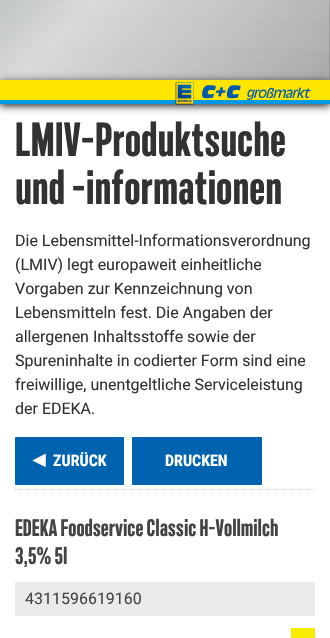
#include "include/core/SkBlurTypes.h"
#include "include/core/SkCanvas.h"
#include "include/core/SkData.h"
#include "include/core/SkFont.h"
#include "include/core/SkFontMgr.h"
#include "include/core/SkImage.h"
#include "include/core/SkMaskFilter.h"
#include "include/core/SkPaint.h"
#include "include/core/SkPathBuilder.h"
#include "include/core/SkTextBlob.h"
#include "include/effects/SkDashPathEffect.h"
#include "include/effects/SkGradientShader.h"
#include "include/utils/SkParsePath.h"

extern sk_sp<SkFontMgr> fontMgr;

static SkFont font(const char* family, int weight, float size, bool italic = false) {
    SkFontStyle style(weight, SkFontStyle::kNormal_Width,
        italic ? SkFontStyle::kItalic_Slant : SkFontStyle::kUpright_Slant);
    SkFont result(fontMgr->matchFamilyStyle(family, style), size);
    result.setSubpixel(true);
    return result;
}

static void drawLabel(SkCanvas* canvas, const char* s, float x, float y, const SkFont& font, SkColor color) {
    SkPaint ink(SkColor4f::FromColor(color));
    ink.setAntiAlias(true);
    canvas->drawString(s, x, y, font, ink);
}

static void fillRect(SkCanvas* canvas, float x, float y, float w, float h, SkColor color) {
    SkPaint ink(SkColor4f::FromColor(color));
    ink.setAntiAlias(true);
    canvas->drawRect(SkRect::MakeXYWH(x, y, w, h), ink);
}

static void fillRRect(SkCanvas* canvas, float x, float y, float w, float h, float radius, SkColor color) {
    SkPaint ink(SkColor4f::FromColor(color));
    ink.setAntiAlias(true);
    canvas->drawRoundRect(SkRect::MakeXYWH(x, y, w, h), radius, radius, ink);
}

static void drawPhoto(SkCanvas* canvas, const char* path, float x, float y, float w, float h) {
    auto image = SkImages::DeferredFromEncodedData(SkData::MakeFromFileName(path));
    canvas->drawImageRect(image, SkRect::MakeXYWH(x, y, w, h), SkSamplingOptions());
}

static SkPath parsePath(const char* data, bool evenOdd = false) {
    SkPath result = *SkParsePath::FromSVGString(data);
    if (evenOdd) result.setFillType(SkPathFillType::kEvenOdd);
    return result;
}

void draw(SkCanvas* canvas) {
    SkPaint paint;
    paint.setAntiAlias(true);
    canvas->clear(0xFFFFFFFF);
    drawPhoto(canvas, "assets/img1.png", 329, 0, 1, 80);
    paint.setColor(0x99000000);
    paint.setMaskFilter(SkMaskFilter::MakeBlur(kNormal_SkBlurStyle, 4));
    canvas->drawRect(SkRect::MakeXYWH(0, 1, 330, 104), paint);
    paint.setMaskFilter(nullptr);
    drawPhoto(canvas, "assets/img2.png", 0, 0, 330, 80);
    paint.setMaskFilter(SkMaskFilter::MakeBlur(kNormal_SkBlurStyle, 4));
    canvas->drawRect(SkRect::MakeXYWH(0, 81, 330, 24), paint);
    paint.setMaskFilter(nullptr);
    fillRect(canvas, 0, 80, 330, 20, 0xFFFFE500);
    fillRect(canvas, 0, 100, 330, 4, 0xFF0099E5);
    drawPhoto(canvas, "assets/img3.png", 175, 82, 19, 23);
    drawPhoto(canvas, "assets/img4.png", 202, 85, 109, 15);
    SkFont font1 = font("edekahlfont", 700, 48);
    drawLabel(canvas, "LMIV-Produktsuche", 15, 156, font1, 0xFF303233);
    drawLabel(canvas, "und -informationen", 15, 204, font1, 0xFF303233);
    SkFont font2 = font("Roboto", 400, 16);
    drawLabel(canvas, "Die Lebensmittel-Informationsverordnung", 15, 246, font2, 0xFF303233);
    drawLabel(canvas, "(LMIV) legt europaweit einheitliche", 15, 270, font2, 0xFF303233);
    drawLabel(canvas, "Vorgaben zur Kennzeichnung von", 15, 294, font2, 0xFF303233);
    drawLabel(canvas, "Lebensmitteln fest. Die Angaben der", 15, 318, font2, 0xFF303233);
    drawLabel(canvas, "allergenen Inhaltsstoffe sowie der", 15, 342, font2, 0xFF303233);
    drawLabel(canvas, "Spureninhalte in codierter Form sind eine", 15, 366, font2, 0xFF303233);
    drawLabel(canvas, "freiwillige, unentgeltliche Serviceleistung", 15, 390, font2, 0xFF303233);
    drawLabel(canvas, "der EDEKA.", 15, 414, font2, 0xFF303233);
    paint.setStroke(true);
    paint.setStrokeWidth(1);
    paint.setColor(0xFFCCCCCC);
    paint.setPathEffect(SkDashPathEffect::Make({{1, 1}}, 0));
    canvas->drawPath(parsePath("M15 489.5H315"), paint);
    paint.setPathEffect(nullptr);
    fillRRect(canvas, 15, 437, 109, 48, 1, 0xFF0063AF);
    SkFont font3 = font("DejaVu Sans", 700, 24);
    drawLabel(canvas, "◂", 33, 467, font3, 0xFFFFFFFF);
    SkFont font4 = font("Roboto Condensed", 700, 16);
    drawLabel(canvas, "ZURÜCK", 53, 466, font4, 0xFFFFFFFF);
    fillRRect(canvas, 132, 437, 130, 48, 1, 0xFF0063AF);
    drawLabel(canvas, "DRUCKEN", 165, 466, font4, 0xFFFFFFFF);
    SkFont font5 = font("edekahlfont", 700, 24);
    drawLabel(canvas, "EDEKA Foodservice Classic H-Vollmilch", 15, 536, font5, 0xFF444444);
    drawLabel(canvas, "3,5% 5l", 15, 564, font5, 0xFF444444);
    fillRect(canvas, 15, 582, 300, 34, 0xFFEAEAEA);
    drawLabel(canvas, "4311596619160", 25, 604, font2, 0xFF444444);
    fillRect(canvas, 291, 628, 24, 10, 0xFFF8EC00);
}
